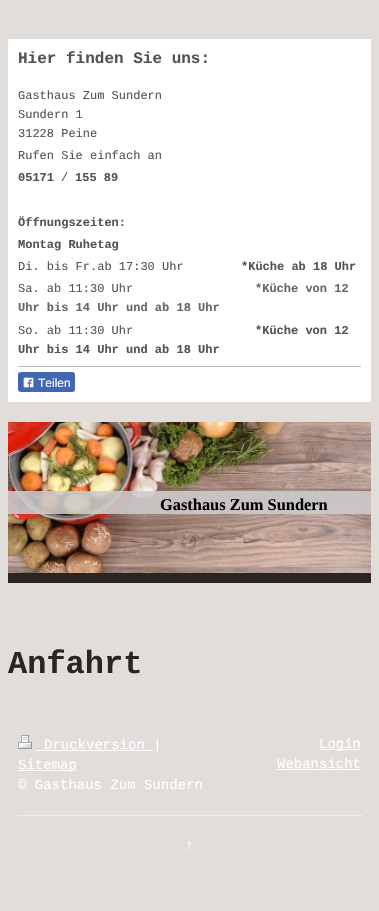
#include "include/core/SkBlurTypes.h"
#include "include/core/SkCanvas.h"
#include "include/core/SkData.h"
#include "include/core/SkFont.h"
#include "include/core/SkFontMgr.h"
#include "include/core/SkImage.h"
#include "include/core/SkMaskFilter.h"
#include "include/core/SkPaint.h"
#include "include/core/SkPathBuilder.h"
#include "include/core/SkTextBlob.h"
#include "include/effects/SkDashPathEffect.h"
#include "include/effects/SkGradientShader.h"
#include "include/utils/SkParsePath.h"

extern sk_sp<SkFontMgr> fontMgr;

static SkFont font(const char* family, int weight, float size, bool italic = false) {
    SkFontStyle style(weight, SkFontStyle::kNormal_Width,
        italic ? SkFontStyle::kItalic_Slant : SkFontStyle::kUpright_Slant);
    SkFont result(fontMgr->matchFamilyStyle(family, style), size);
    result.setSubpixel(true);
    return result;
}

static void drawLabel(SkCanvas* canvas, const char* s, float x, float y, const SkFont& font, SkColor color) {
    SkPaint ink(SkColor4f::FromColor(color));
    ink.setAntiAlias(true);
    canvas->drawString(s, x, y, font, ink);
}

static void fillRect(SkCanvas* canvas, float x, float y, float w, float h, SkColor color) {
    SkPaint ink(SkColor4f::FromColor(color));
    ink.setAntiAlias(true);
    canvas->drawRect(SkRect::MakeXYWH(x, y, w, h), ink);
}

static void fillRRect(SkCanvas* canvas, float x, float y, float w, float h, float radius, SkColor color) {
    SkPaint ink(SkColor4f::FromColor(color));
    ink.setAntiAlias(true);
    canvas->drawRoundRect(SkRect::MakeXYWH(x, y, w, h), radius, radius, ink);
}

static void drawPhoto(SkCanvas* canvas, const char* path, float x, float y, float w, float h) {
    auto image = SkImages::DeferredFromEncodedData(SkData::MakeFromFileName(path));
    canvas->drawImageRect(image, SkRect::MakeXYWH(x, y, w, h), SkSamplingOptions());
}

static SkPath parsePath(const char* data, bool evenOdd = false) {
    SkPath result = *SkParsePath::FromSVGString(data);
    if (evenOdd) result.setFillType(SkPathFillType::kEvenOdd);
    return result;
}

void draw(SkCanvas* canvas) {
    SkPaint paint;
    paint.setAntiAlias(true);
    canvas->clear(0xFFE1DDDB);
    fillRect(canvas, 8, 39, 363, 363, 0xFFFFFFFF);
    SkFont font1 = font("Liberation Mono", 700, 16);
    drawLabel(canvas, "Hier finden Sie uns:", 18, 63, font1, 0xFF535353);
    SkFont font2 = font("Liberation Mono", 400, 12);
    drawLabel(canvas, "Gasthaus Zum Sundern", 18, 99, font2, 0xFF535353);
    drawLabel(canvas, "Sundern 1", 18, 118, font2, 0xFF535353);
    drawLabel(canvas, "31228 Peine", 18, 137, font2, 0xFF535353);
    drawLabel(canvas, "Rufen Sie einfach an", 18, 159, font2, 0xFF535353);
    SkFont font3 = font("Liberation Mono", 700, 12);
    drawLabel(canvas, "05171", 18, 181, font3, 0xFF535353);
    drawLabel(canvas, "/", 61, 181, font2, 0xFF535353);
    drawLabel(canvas, "155 89", 75, 181, font3, 0xFF535353);
    drawLabel(canvas, "Öffnungszeiten:", 18, 226, font3, 0xFF535353);
    drawLabel(canvas, "Montag Ruhetag", 18, 248, font3, 0xFF535353);
    drawLabel(canvas, "Di. bis Fr.ab 17:30 Uhr", 18, 270, font2, 0xFF535353);
    drawLabel(canvas, "*Küche ab 18 Uhr", 241, 270, font3, 0xFF535353);
    drawLabel(canvas, "Sa. ab 11:30 Uhr", 18, 292, font2, 0xFF535353);
    drawLabel(canvas, "*Küche von 12", 255, 292, font3, 0xFF666666);
    drawLabel(canvas, "Uhr bis 14 Uhr und ab 18 Uhr", 18, 311, font3, 0xFF666666);
    drawLabel(canvas, "So. ab 11:30 Uhr", 18, 334, font2, 0xFF535353);
    drawLabel(canvas, "*Küche von 12", 255, 334, font3, 0xFF535353);
    drawLabel(canvas, "Uhr bis 14 Uhr und ab 18 Uhr", 18, 353, font3, 0xFF535353);
    fillRect(canvas, 18, 366, 343, 1, 0xFFBABABA);
    fillRRect(canvas, 18, 372, 57, 20, 3, 0xFF4267B2);
    drawPhoto(canvas, "assets/img1.png", 23, 377, 11, 11);
    SkFont font4 = font("Liberation Sans", 400, 12);
    drawLabel(canvas, "Teilen", 38, 387, font4, 0xFFFFFFFF);
    fillRect(canvas, 8, 573, 363, 10, 0xFF282625);
    drawPhoto(canvas, "assets/img2.png", 8, 422, 363, 151);
    fillRect(canvas, 8, 491, 363, 23, 0xE0CCCCCC);
    SkFont font5 = font("Liberation Serif", 700, 16.4f);
    drawLabel(canvas, "Gasthaus Zum Sundern", 160, 510, font5, 0xFF000000);
    SkFont font6 = font("Liberation Mono", 700, 32);
    drawLabel(canvas, "Anfahrt", 8, 673, font6, 0xFF282625);
    drawPhoto(canvas, "assets/img3.png", 18, 735, 14, 14);
    fillRect(canvas, 36, 750, 117, 1, 0xFFFFFFFF);
    SkFont font7 = font("Liberation Mono", 400, 14);
    drawLabel(canvas, "Druckversion |", 44, 749, font7, 0xFFFFFFFF);
    fillRect(canvas, 18, 770, 58, 1, 0xFFFFFFFF);
    drawLabel(canvas, "Sitemap", 18, 769, font7, 0xFFFFFFFF);
    canvas->save();
    canvas->clipRect(SkRect::MakeXYWH(18, 735, 343, 60));
    drawLabel(canvas, "© Gasthaus Zum Sundern", 18, 789, font7, 0xFFFFFFFF);
    canvas->restore();
    fillRect(canvas, 319, 749, 42, 1, 0xFFFFFFFF);
    drawLabel(canvas, "Login", 319, 748, font7, 0xFFFFFFFF);
    drawLabel(canvas, "Webansicht", 277, 768, font7, 0xFFFFFFFF);
    fillRect(canvas, 277, 769, 84, 1, 0xFFFFFFFF);
    paint.setStroke(true);
    paint.setStrokeWidth(1);
    paint.setColor(0xFFFFFFFF);
    paint.setPathEffect(SkDashPathEffect::Make({{1, 1}}, 0));
    canvas->drawPath(parsePath("M18 815.5H361"), paint);
    paint.setPathEffect(nullptr);
    drawLabel(canvas, "↑", 185, 849, font7, 0xFFFFFFFF);
}
